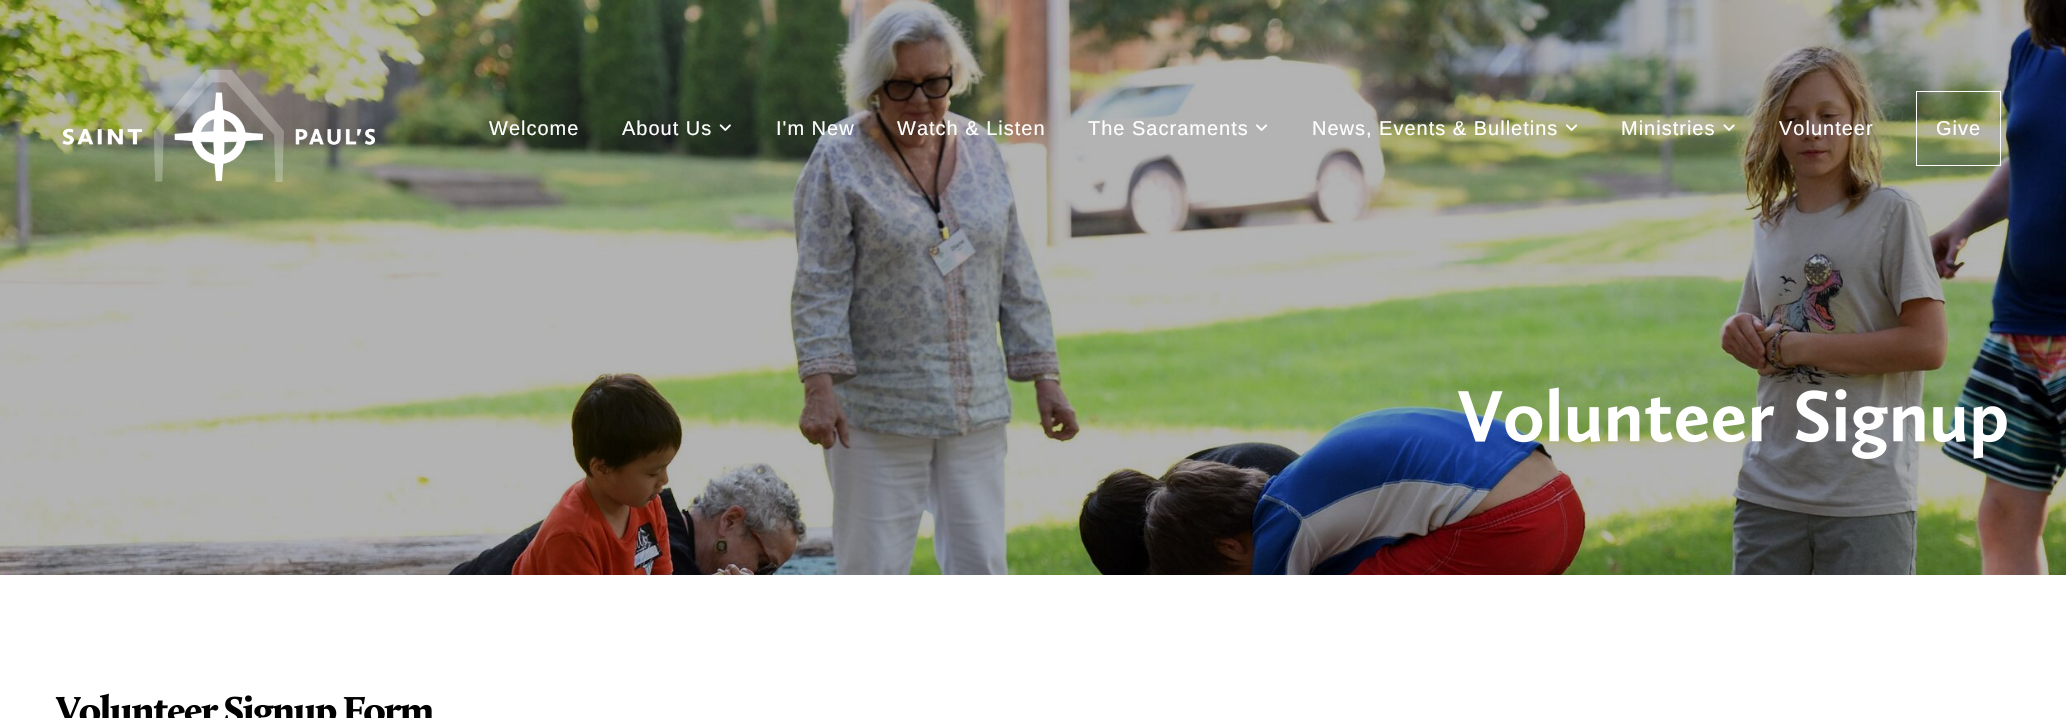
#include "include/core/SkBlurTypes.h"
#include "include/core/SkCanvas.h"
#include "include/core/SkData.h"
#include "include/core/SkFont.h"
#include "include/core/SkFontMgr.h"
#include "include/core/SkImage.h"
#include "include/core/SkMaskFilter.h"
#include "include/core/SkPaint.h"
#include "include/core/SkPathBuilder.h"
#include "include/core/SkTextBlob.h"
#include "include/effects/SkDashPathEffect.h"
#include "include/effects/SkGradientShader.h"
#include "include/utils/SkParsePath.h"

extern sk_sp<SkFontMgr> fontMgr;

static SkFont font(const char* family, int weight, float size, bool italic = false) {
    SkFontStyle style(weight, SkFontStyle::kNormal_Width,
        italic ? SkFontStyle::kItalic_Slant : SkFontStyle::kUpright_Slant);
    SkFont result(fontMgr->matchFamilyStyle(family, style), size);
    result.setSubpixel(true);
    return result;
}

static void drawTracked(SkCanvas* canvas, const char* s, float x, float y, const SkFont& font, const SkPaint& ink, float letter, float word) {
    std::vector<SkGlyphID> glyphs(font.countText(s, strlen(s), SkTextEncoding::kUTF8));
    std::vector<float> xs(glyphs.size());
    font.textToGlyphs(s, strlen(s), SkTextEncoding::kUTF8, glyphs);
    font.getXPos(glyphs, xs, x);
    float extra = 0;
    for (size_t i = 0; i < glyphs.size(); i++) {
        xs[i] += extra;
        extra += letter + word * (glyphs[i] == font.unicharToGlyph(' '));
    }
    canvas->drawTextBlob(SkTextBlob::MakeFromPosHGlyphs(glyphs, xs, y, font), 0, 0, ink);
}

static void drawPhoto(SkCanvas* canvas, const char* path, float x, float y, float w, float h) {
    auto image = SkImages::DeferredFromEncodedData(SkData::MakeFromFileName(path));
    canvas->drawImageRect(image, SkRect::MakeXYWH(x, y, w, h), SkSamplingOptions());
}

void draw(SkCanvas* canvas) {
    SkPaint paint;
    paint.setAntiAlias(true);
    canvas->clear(0xFFFFFFFF);
    drawPhoto(canvas, "assets/img1.png", 0, 0, 2066, 575);
    drawPhoto(canvas, "assets/img2.png", 1458, 387, 549, 72);
    drawPhoto(canvas, "assets/img3.png", 55, 693, 377, 25);
    drawPhoto(canvas, "assets/img4.png", 62, 69, 313, 113);
    SkFont font1 = font("Liberation Sans", 400, 20);
    paint.setColor(0xFFFFFFFF);
    drawTracked(canvas, "Welcome", 489, 135, font1, paint, 1, 0);
    drawTracked(canvas, "About Us", 622, 135, font1, paint, 1, 0);
    drawPhoto(canvas, "assets/img5.png", 719, 124, 12, 7);
    drawTracked(canvas, "I'm New", 776, 135, font1, paint, 1, 0);
    drawTracked(canvas, "Watch & Listen", 897, 135, font1, paint, 1, 0);
    drawTracked(canvas, "The Sacraments", 1088, 135, font1, paint, 1, 0);
    drawPhoto(canvas, "assets/img6.png", 1256, 124, 12, 7);
    drawTracked(canvas, "News, Events & Bulletins", 1312, 135, font1, paint, 1, 0);
    drawPhoto(canvas, "assets/img7.png", 1566, 124, 12, 7);
    drawTracked(canvas, "Ministries", 1621, 135, font1, paint, 1, 0);
    drawPhoto(canvas, "assets/img8.png", 1723, 124, 12, 7);
    drawTracked(canvas, "Volunteer", 1779, 135, font1, paint, 1, 0);
    paint.setStroke(true);
    paint.setStrokeWidth(1);
    canvas->drawRect(SkRect::MakeXYWH(1916.5f, 91.5f, 84, 74), paint);
    paint.setStroke(false);
    drawTracked(canvas, "Give", 1936, 135, font1, paint, 1, 0);
}
